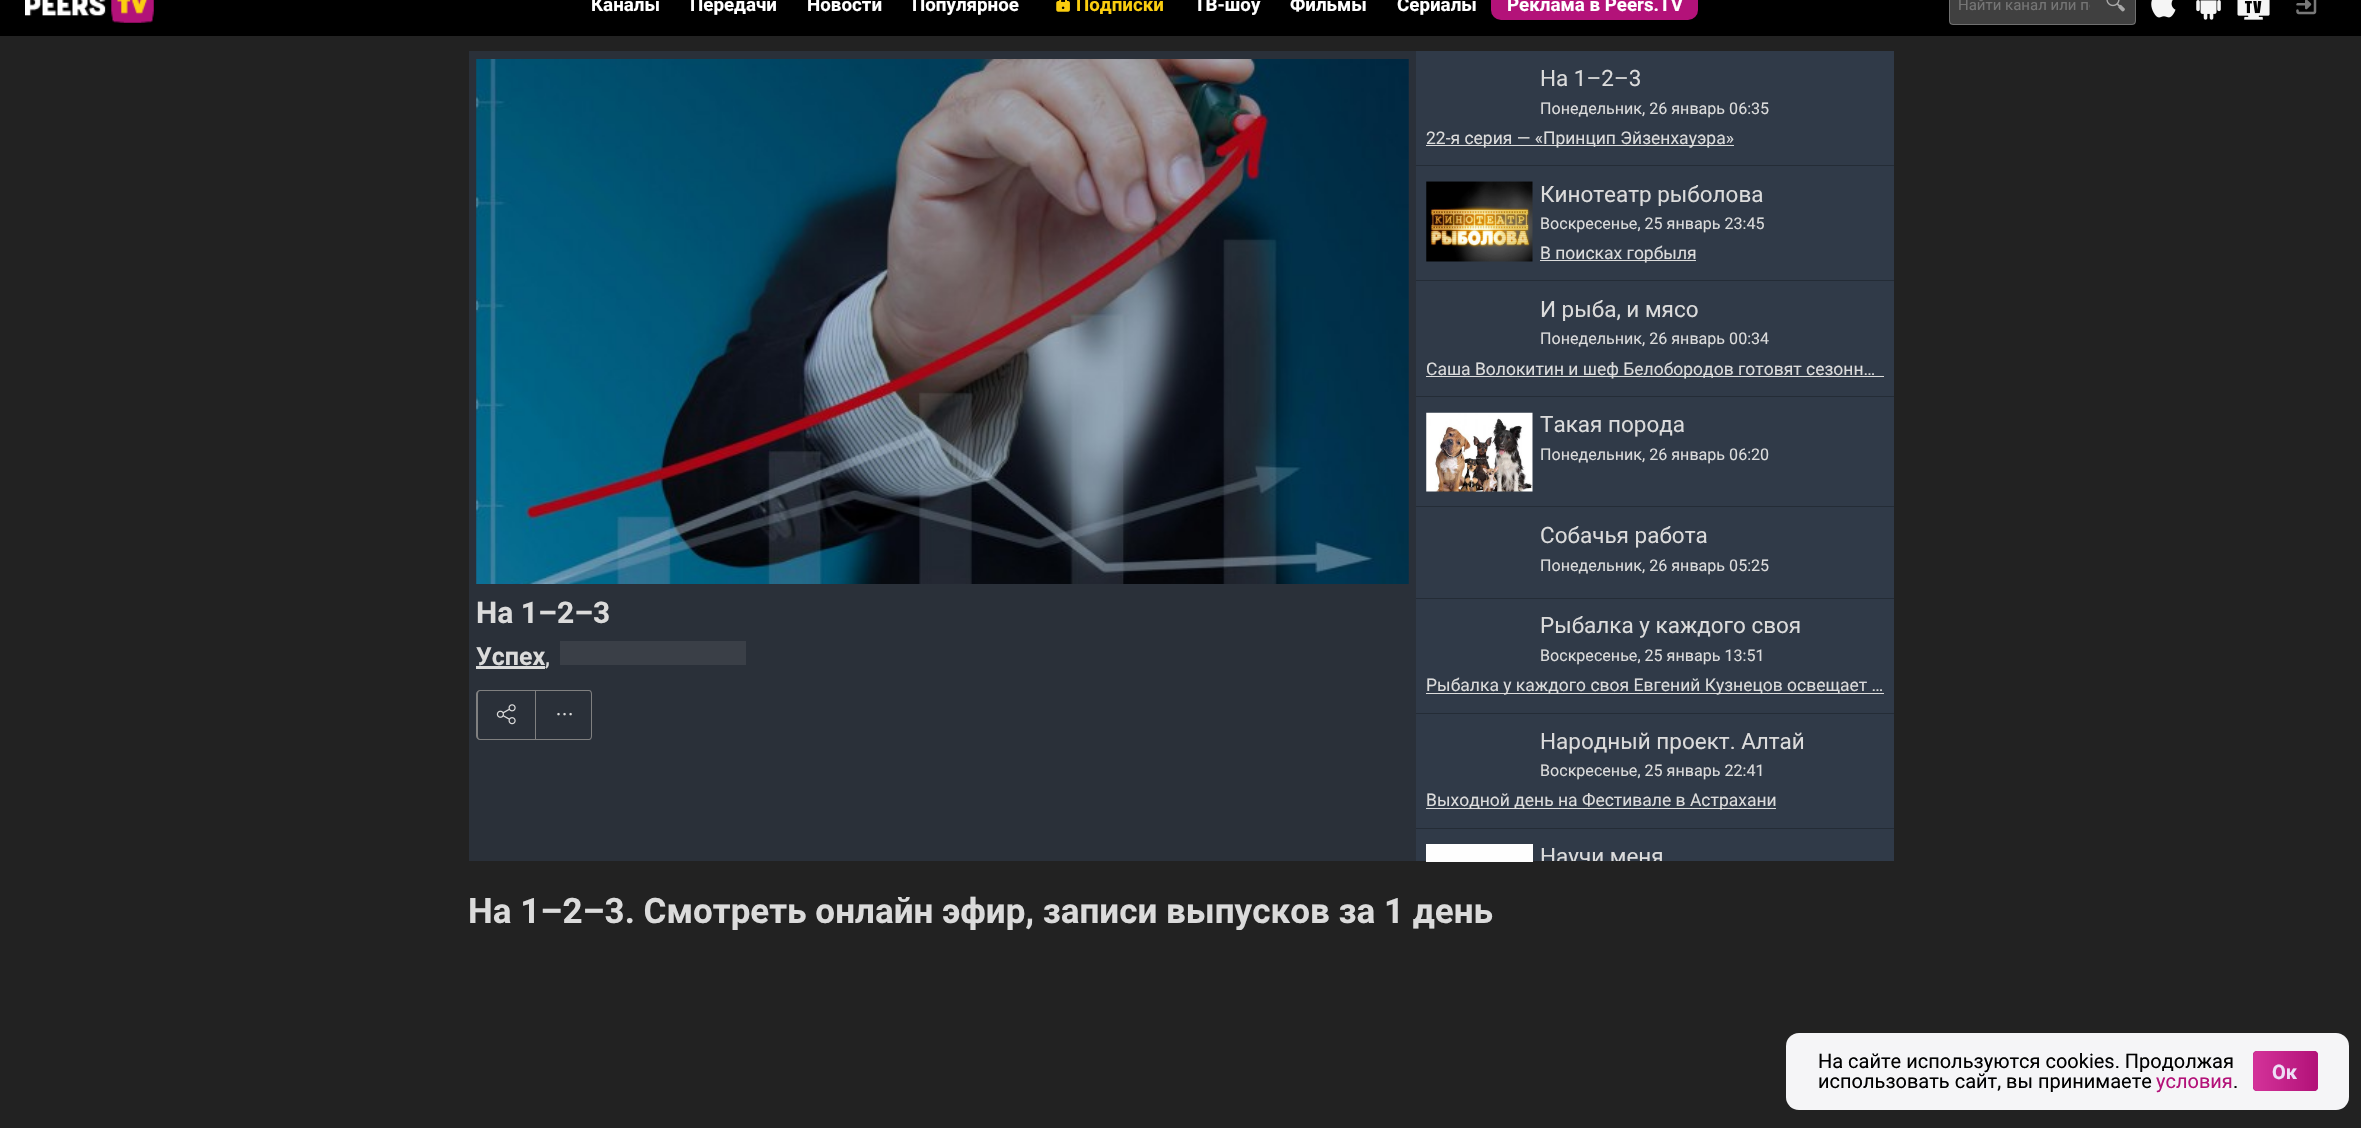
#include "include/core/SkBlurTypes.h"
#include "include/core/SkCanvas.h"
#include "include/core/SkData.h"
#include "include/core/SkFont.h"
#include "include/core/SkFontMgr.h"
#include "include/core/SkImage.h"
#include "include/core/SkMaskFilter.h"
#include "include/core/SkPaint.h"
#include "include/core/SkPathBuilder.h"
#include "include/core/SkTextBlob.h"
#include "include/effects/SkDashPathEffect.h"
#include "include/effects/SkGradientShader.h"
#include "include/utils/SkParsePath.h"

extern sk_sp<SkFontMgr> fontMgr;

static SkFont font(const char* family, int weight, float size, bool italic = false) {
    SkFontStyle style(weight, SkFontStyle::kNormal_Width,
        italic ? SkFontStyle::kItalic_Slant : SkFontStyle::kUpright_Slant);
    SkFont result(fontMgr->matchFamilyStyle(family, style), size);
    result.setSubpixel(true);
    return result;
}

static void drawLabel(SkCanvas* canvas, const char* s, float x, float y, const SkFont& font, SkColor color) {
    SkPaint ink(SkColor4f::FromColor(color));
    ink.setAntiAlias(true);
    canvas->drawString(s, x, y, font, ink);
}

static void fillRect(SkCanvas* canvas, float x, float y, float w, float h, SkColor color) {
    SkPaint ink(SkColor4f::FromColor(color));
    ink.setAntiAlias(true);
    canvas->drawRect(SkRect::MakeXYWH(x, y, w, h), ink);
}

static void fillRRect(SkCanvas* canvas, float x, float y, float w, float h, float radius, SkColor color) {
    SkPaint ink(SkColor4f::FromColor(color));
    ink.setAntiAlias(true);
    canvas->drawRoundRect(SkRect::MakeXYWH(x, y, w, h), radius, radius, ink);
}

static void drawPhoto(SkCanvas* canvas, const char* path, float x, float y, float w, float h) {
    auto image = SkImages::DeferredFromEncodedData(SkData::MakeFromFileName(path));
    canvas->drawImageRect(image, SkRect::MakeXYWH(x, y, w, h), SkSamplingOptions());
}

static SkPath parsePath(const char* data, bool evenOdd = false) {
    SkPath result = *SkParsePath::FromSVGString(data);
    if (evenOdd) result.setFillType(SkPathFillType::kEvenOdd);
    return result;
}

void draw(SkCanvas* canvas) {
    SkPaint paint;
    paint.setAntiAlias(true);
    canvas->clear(0xFF222222);
    fillRect(canvas, 0, 0, 2361, 36, 0xFF000000);
    drawPhoto(canvas, "assets/img1.png", 25, 0, 129, 23);
    SkFont font1 = font("Roboto", 700, 18.75f);
    drawLabel(canvas, "Каналы", 591, 11, font1, 0xFFFFFFFF);
    drawLabel(canvas, "Передачи", 690, 11, font1, 0xFFFFFFFF);
    drawLabel(canvas, "Новости", 807, 11, font1, 0xFFFFFFFF);
    drawLabel(canvas, "Популярное", 912, 11, font1, 0xFFFFFFFF);
    drawPhoto(canvas, "assets/img2.png", 1056, 0, 14, 12);
    drawLabel(canvas, "Подписки", 1076, 11, font1, 0xFFFACD0F);
    drawLabel(canvas, "ТВ-шоу", 1194, 11, font1, 0xFFFFFFFF);
    drawLabel(canvas, "Фильмы", 1290, 11, font1, 0xFFFFFFFF);
    drawLabel(canvas, "Сериалы", 1397, 11, font1, 0xFFFFFFFF);
    fillRRect(canvas, 1491, -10, 207, 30, 10, 0xFFB31279);
    drawLabel(canvas, "Реклама в Peers.TV", 1507, 11, font1, 0xFFFFFFFF);
    fillRRect(canvas, 1949, -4, 187, 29, 4, 0xFF404040);
    paint.setStroke(true);
    paint.setStrokeWidth(1);
    paint.setColor(0x40FFFFFF);
    canvas->drawRoundRect(SkRect::MakeXYWH(1949.5f, -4.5f, 186, 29), 3.5f, 3.5f, paint);
    canvas->save();
    canvas->clipRect(SkRect::MakeXYWH(1958, 0, 132, 14));
    SkFont font2 = font("Roboto", 400, 15);
    drawLabel(canvas, "Найти канал или пе", 1958, 10, font2, 0xFF757575);
    canvas->restore();
    drawPhoto(canvas, "assets/img3.png", 2106, 0, 19, 12);
    drawPhoto(canvas, "assets/img4.png", 2151, 0, 25, 18);
    drawPhoto(canvas, "assets/img5.png", 2196, 0, 25, 20);
    drawPhoto(canvas, "assets/img6.png", 2237, 0, 33, 20);
    drawPhoto(canvas, "assets/img7.png", 2296, 0, 21, 15);
    fillRect(canvas, 469, 51, 947, 810, 0xFF2A3039);
    drawPhoto(canvas, "assets/img8.png", 476, 59, 933, 525);
    SkFont font3 = font("Roboto", 700, 30);
    drawLabel(canvas, "На 1–2–3", 476, 623, font3, 0xFFDBDBDB);
    SkFont font4 = font("Roboto", 700, 25);
    drawLabel(canvas, "Успех", 476, 665, font4, 0xFFDBDBDB);
    SkFont font5 = font("Roboto", 400, 25);
    drawLabel(canvas, ",", 545, 665, font5, 0xFFDBDBDB);
    fillRect(canvas, 476, 666, 69, 3, 0xFFDBDBDB);
    fillRect(canvas, 560, 641, 186, 24, 0xFF3A3F47);
    paint.setStroke(false);
    paint.setColor(0xFF808080);
    canvas->drawPath(parsePath("M480 690H535V740H480C478 740 476 738 476 736V694C476 692 478 690 480 690ZM480 691H535V739H480C479 739 478 738 478 736V694C478 692 479 691 480 691Z", true), paint);
    drawPhoto(canvas, "assets/img9.png", 496, 704, 20, 21);
    fillRect(canvas, 535, 690, 1, 50, 0xFF808080);
    canvas->drawPath(parsePath("M536 690H589C591 690 592 692 592 694V736C592 738 591 740 589 740H536ZM536 691H589C590 691 591 692 591 694V736C591 738 590 739 589 739H536Z", true), paint);
    drawPhoto(canvas, "assets/img10.png", 557, 712, 15, 4);
    fillRect(canvas, 1416, 51, 478, 810, 0xFF303A48);
    fillRect(canvas, 1416, 165, 478, 1, 0xFF242C36);
    SkFont font6 = font("Roboto", 400, 22.5f);
    drawLabel(canvas, "На 1–2–3", 1540, 86, font6, 0xFFDBDBDB);
    SkFont font7 = font("Roboto", 400, 16.1f);
    drawLabel(canvas, "Понедельник, 26 январь 06:35", 1540, 114, font7, 0xFFDBDBDB);
    fillRect(canvas, 1426, 145, 308, 1, 0xFFDCDCDC);
    SkFont font8 = font("Roboto", 400, 17.5f);
    drawLabel(canvas, "22-я серия — «Принцип Эйзенхауэра»", 1426, 144, font8, 0xFFDBDBDB);
    fillRect(canvas, 1416, 280, 478, 1, 0xFF242C36);
    drawPhoto(canvas, "assets/img11.png", 1426, 181, 107, 81);
    canvas->save();
    canvas->clipRect(SkRect::MakeXYWH(1540, 181, 344, 25));
    drawLabel(canvas, "Кинотеатр рыболова", 1540, 202, font6, 0xFFDBDBDB);
    canvas->restore();
    drawLabel(canvas, "Воскресенье, 25 январь 23:45", 1540, 229, font7, 0xFFDBDBDB);
    fillRect(canvas, 1540, 260, 156, 1, 0xFFDCDCDC);
    drawLabel(canvas, "В поисках горбыля", 1540, 259, font8, 0xFFDBDBDB);
    fillRect(canvas, 1416, 396, 478, 1, 0xFF242C36);
    canvas->save();
    canvas->clipRect(SkRect::MakeXYWH(1540, 296, 344, 25));
    drawLabel(canvas, "И рыба, и мясо", 1540, 317, font6, 0xFFDBDBDB);
    canvas->restore();
    drawLabel(canvas, "Понедельник, 26 январь 00:34", 1540, 344, font7, 0xFFDBDBDB);
    fillRect(canvas, 1426, 376, 458, 1, 0xFFDCDCDC);
    drawLabel(canvas, "Саша Волокитин и шеф Белобородов готовят сезонн…", 1426, 375, font8, 0xFFDBDBDB);
    fillRect(canvas, 1416, 506, 478, 1, 0xFF242C36);
    drawPhoto(canvas, "assets/img12.png", 1426, 412, 107, 80);
    drawLabel(canvas, "Такая порода", 1540, 432, font6, 0xFFDBDBDB);
    drawLabel(canvas, "Понедельник, 26 январь 06:20", 1540, 460, font7, 0xFFDBDBDB);
    fillRect(canvas, 1416, 598, 478, 1, 0xFF242C36);
    drawLabel(canvas, "Собачья работа", 1540, 543, font6, 0xFFDBDBDB);
    drawLabel(canvas, "Понедельник, 26 январь 05:25", 1540, 571, font7, 0xFFDBDBDB);
    fillRect(canvas, 1416, 713, 478, 1, 0xFF242C36);
    drawLabel(canvas, "Рыбалка у каждого своя", 1540, 633, font6, 0xFFDBDBDB);
    drawLabel(canvas, "Воскресенье, 25 январь 13:51", 1540, 661, font7, 0xFFDBDBDB);
    fillRect(canvas, 1426, 693, 458, 1, 0xFFDCDCDC);
    drawLabel(canvas, "Рыбалка у каждого своя Евгений Кузнецов освещает …", 1426, 691, font8, 0xFFDBDBDB);
    fillRect(canvas, 1416, 828, 478, 1, 0xFF242C36);
    drawLabel(canvas, "Народный проект. Алтай", 1540, 749, font6, 0xFFDBDBDB);
    drawLabel(canvas, "Воскресенье, 25 январь 22:41", 1540, 776, font7, 0xFFDBDBDB);
    fillRect(canvas, 1426, 808, 350, 1, 0xFFDCDCDC);
    drawLabel(canvas, "Выходной день на Фестивале в Астрахани", 1426, 806, font8, 0xFFDBDBDB);
    fillRect(canvas, 1426, 844, 107, 18, 0xFFFEFEFE);
    canvas->save();
    canvas->clipRect(SkRect::MakeXYWH(1540, 844, 344, 17));
    drawLabel(canvas, "Научи меня", 1540, 864, font6, 0xFFDBDBDB);
    canvas->restore();
    canvas->save();
    canvas->clipRect(SkRect::MakeXYWH(469, 894, 1110, 36));
    SkFont font9 = font("Roboto", 700, 35);
    drawLabel(canvas, "На 1–2–3. Смотреть онлайн эфир, записи выпусков за 1 день", 468, 923, font9, 0xFFDBDBDB);
    canvas->restore();
    fillRRect(canvas, 1786, 1033, 563, 77, 13, 0xFFF5F5F7);
    SkFont font10 = font("Roboto", 400, 20);
    drawLabel(canvas, "На сайте используются cookies. Продолжая", 1818, 1068, font10, 0xFF000000);
    drawLabel(canvas, "использовать сайт, вы принимаете", 1818, 1088, font10, 0xFF000000);
    drawLabel(canvas, "условия", 2156, 1088, font10, 0xFFB31279);
    drawLabel(canvas, ".", 2233, 1088, font10, 0xFF000000);
    fillRRect(canvas, 2253, 1051, 65, 40, 4, 0xFFB31279);
    canvas->save();
    canvas->clipPath(parsePath("M2257 1051H2314C2316 1051 2318 1053 2318 1055V1087C2318 1089 2316 1091 2314 1091H2257C2255 1091 2253 1089 2253 1087V1055C2253 1053 2255 1051 2257 1051Z"), true);
    {
        const SkColor colors[] = {0xFFB31279, 0xFFD33299, 0xFFB31279};
        const float stops[] = {0, 0.51f, 1};
        const SkPoint ends[] = {{2191, 1071}, {2316, 1071}};
        paint.setShader(SkGradientShader::MakeLinear(ends, colors, stops, 3, SkTileMode::kClamp));
        paint.setAlpha(255);
    }
    canvas->drawPath(parsePath("M2257 1051H2316V1091H2257C2255 1091 2253 1089 2253 1087V1055C2253 1053 2255 1051 2257 1051Z"), paint);
    {
        const SkColor colors[] = {0xFFB31279, 0xFFD33299, 0xFFB31279};
        const float stops[] = {0, 0.51f, 1};
        const SkPoint ends[] = {{2316, 1071}, {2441, 1071}};
        paint.setShader(SkGradientShader::MakeLinear(ends, colors, stops, 3, SkTileMode::kClamp));
        paint.setAlpha(255);
    }
    canvas->drawRect(SkRect::MakeXYWH(2316, 1051, 2, 40), paint);
    canvas->restore();
    SkFont font11 = font("Roboto", 700, 20);
    drawLabel(canvas, "Ок", 2272, 1079, font11, 0xFFEDE0F7);
}
